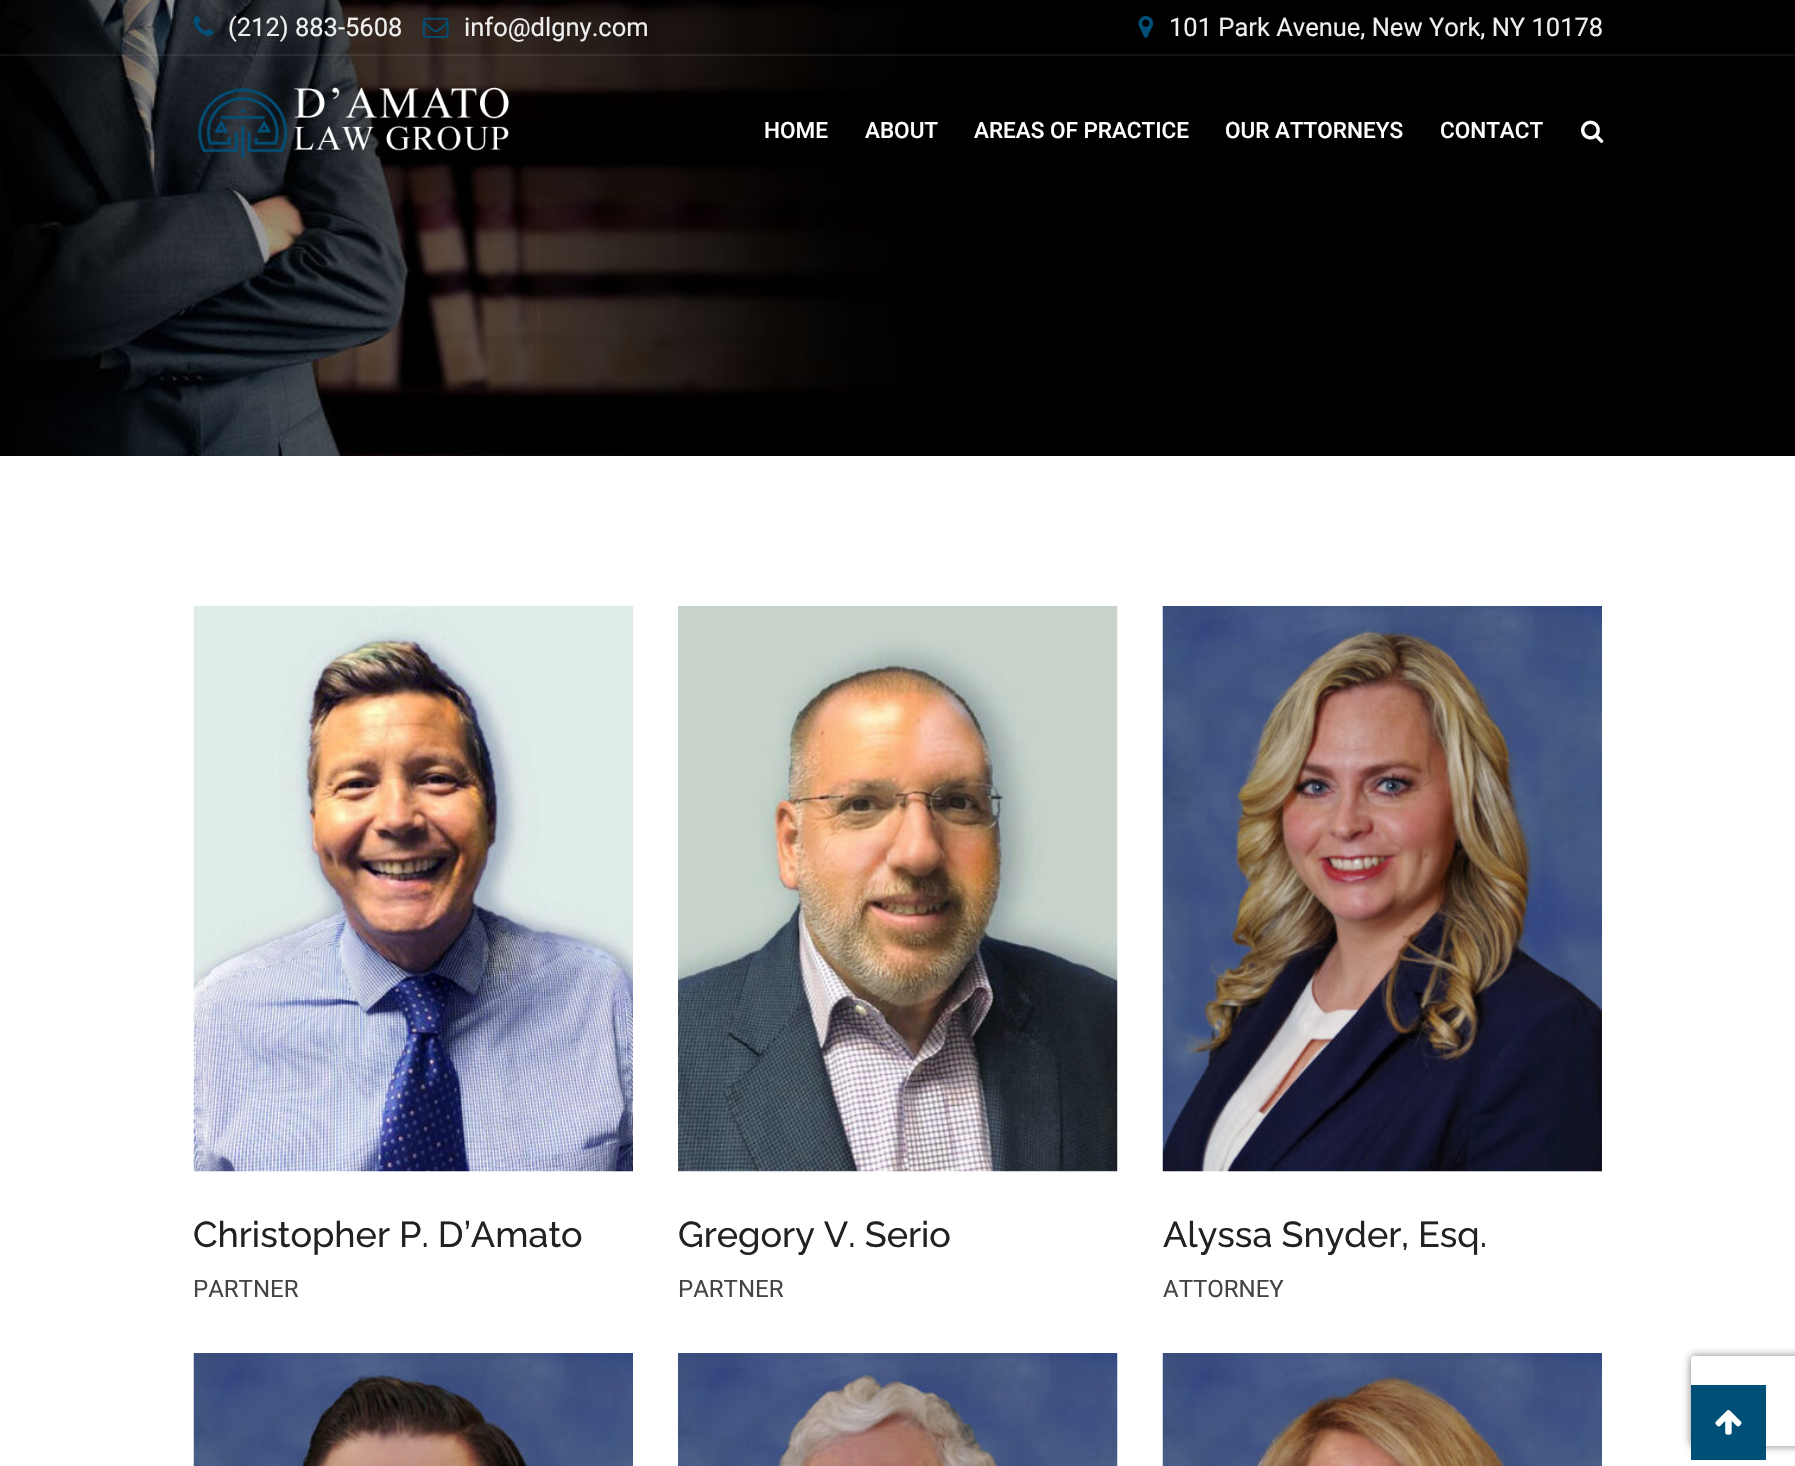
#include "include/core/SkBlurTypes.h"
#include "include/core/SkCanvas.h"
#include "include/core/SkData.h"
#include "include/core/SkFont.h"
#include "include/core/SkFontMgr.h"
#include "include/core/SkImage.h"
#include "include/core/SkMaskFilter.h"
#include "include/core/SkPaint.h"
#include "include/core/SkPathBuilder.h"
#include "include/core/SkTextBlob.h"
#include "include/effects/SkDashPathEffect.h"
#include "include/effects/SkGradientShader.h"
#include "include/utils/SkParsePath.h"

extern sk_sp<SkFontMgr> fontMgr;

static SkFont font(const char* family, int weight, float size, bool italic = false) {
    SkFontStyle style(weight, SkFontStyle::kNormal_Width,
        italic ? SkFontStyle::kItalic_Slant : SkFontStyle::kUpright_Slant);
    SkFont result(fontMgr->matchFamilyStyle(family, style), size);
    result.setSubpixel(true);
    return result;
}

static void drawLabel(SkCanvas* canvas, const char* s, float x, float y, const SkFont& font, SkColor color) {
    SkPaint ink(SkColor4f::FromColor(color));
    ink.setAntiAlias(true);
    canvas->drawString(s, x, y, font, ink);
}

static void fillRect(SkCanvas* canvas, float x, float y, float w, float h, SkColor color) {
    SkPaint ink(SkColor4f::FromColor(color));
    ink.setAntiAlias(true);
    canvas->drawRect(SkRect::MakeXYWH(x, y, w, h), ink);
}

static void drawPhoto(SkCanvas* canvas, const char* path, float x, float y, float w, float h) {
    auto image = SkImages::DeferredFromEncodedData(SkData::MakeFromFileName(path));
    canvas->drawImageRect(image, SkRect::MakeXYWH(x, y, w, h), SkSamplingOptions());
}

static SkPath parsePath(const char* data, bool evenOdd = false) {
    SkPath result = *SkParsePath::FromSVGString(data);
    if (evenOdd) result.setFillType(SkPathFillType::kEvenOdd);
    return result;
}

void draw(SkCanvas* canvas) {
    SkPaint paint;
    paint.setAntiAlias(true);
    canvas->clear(0xFFFFFFFF);
    drawPhoto(canvas, "assets/img6.png", 0, 0, 1795, 456);
    fillRect(canvas, 0, 54, 1795, 2, 0x1AB5B5B5);
    drawPhoto(canvas, "assets/img1.png", 193, 16, 21, 20);
    SkFont font1 = font("Roboto", 400, 25.5f);
    drawLabel(canvas, "(212) 883-5608", 228, 36, font1, 0xFFEFEFEF);
    drawPhoto(canvas, "assets/img2.png", 423, 17, 26, 21);
    drawLabel(canvas, "info@dlgny.com", 464, 36, font1, 0xFFEFEFEF);
    drawPhoto(canvas, "assets/img3.png", 1138, 16, 16, 22);
    drawLabel(canvas, "101 Park Avenue, New York, NY 10178", 1169, 36, font1, 0xFFEFEFEF);
    drawPhoto(canvas, "assets/img4.png", 197, 87, 312, 71);
    SkFont font2 = font("Roboto", 500, 22.5f);
    drawLabel(canvas, "HOME", 764, 138, font2, 0xFFFFFFFF);
    drawLabel(canvas, "ABOUT", 865, 138, font2, 0xFFFFFFFF);
    drawLabel(canvas, "AREAS OF PRACTICE", 974, 138, font2, 0xFFFFFFFF);
    drawLabel(canvas, "OUR ATTORNEYS", 1225, 138, font2, 0xFFFFFFFF);
    drawLabel(canvas, "CONTACT", 1440, 138, font2, 0xFFFFFFFF);
    drawPhoto(canvas, "assets/img5.png", 1581, 120, 23, 23);
    drawPhoto(canvas, "assets/img7.png", 193, 606, 440, 566);
    SkFont font3 = font("Raleway", 100, 36);
    drawLabel(canvas, "Christopher P. D’Amato", 193, 1247, font3, 0xFF222222);
    SkFont font4 = font("Roboto", 400, 24);
    drawLabel(canvas, "PARTNER", 193, 1297, font4, 0xFF444444);
    drawPhoto(canvas, "assets/img8.png", 678, 606, 440, 566);
    drawLabel(canvas, "Gregory V. Serio", 678, 1247, font3, 0xFF222222);
    drawLabel(canvas, "PARTNER", 678, 1297, font4, 0xFF444444);
    drawPhoto(canvas, "assets/img9.png", 1162, 606, 440, 566);
    drawLabel(canvas, "Alyssa Snyder, Esq.", 1163, 1247, font3, 0xFF222222);
    drawLabel(canvas, "ATTORNEY", 1163, 1297, font4, 0xFF444444);
    drawPhoto(canvas, "assets/img10.png", 193, 1353, 440, 113);
    drawPhoto(canvas, "assets/img11.png", 678, 1353, 440, 113);
    drawPhoto(canvas, "assets/img12.png", 1162, 1353, 440, 113);
    canvas->save();
    canvas->clipPath(parsePath("M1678 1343H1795V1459H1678ZM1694 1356H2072C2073.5 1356 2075 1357.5 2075 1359V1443C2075 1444.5 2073.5 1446 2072 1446H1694C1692.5 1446 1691 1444.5 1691 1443V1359C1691 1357.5 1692.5 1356 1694 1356Z", true), true);
    paint.setColor(0xFF808080);
    paint.setMaskFilter(SkMaskFilter::MakeBlur(kNormal_SkBlurStyle, 4));
    canvas->drawRoundRect(SkRect::MakeXYWH(1691, 1356, 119, 90), 3, 3, paint);
    paint.setMaskFilter(nullptr);
    canvas->restore();
    fillRect(canvas, 1691, 1385, 75, 75, 0xFF004F77);
    drawPhoto(canvas, "assets/img13.png", 1715, 1410, 27, 25);
}
